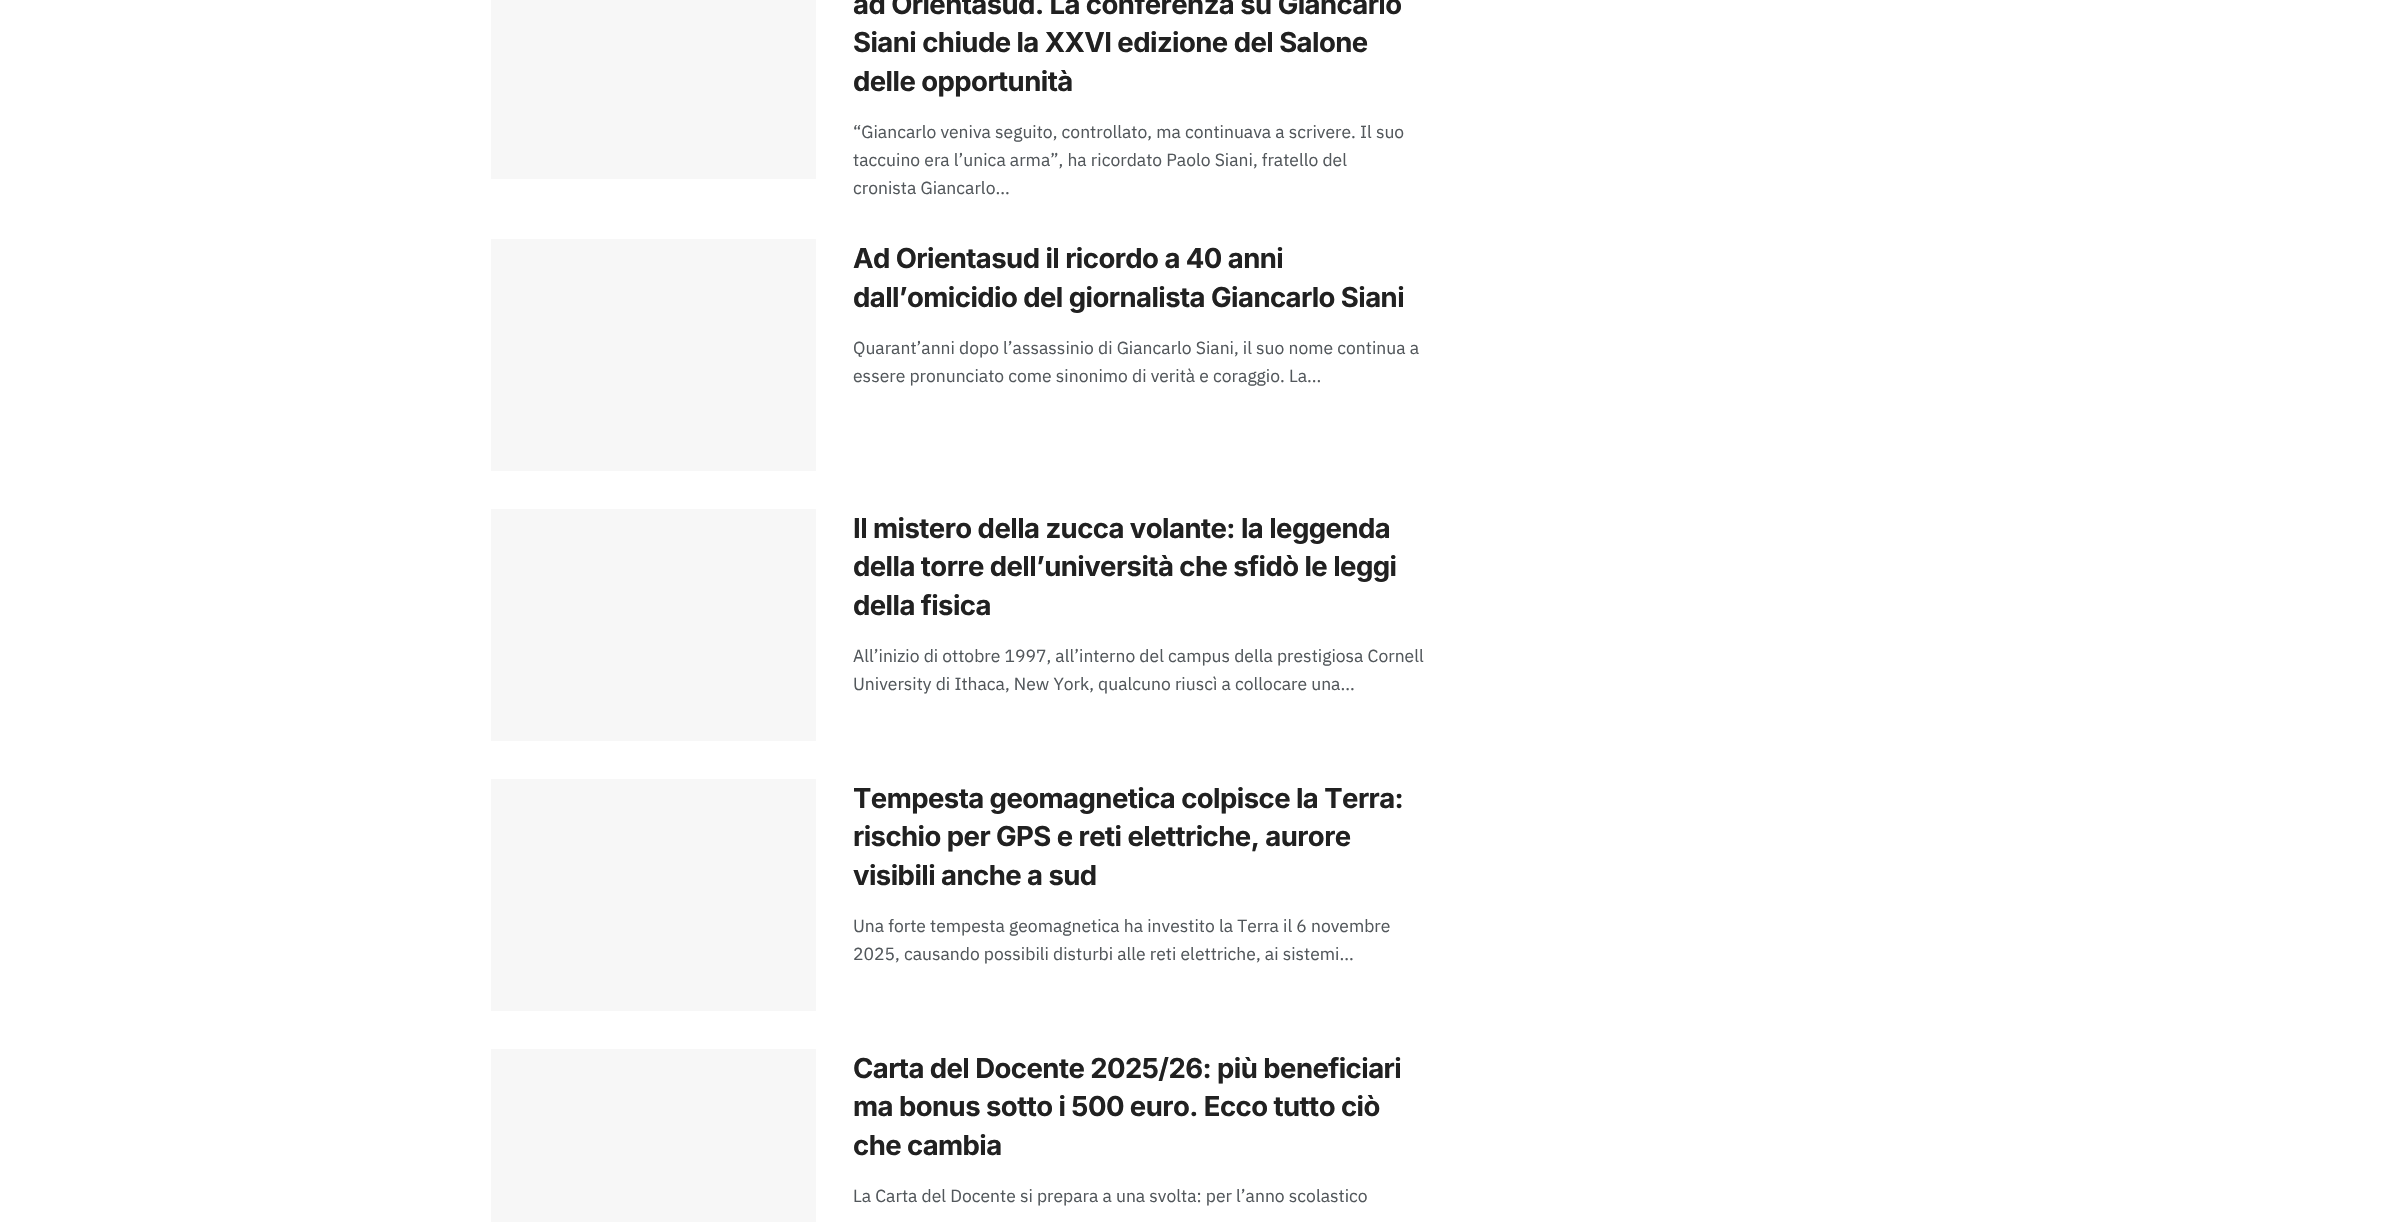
#include "include/core/SkBlurTypes.h"
#include "include/core/SkCanvas.h"
#include "include/core/SkData.h"
#include "include/core/SkFont.h"
#include "include/core/SkFontMgr.h"
#include "include/core/SkImage.h"
#include "include/core/SkMaskFilter.h"
#include "include/core/SkPaint.h"
#include "include/core/SkPathBuilder.h"
#include "include/core/SkTextBlob.h"
#include "include/effects/SkDashPathEffect.h"
#include "include/effects/SkGradientShader.h"
#include "include/utils/SkParsePath.h"

extern sk_sp<SkFontMgr> fontMgr;

static SkFont font(const char* family, int weight, float size, bool italic = false) {
    SkFontStyle style(weight, SkFontStyle::kNormal_Width,
        italic ? SkFontStyle::kItalic_Slant : SkFontStyle::kUpright_Slant);
    SkFont result(fontMgr->matchFamilyStyle(family, style), size);
    result.setSubpixel(true);
    return result;
}

static void drawLabel(SkCanvas* canvas, const char* s, float x, float y, const SkFont& font, SkColor color) {
    SkPaint ink(SkColor4f::FromColor(color));
    ink.setAntiAlias(true);
    canvas->drawString(s, x, y, font, ink);
}

static void drawTracked(SkCanvas* canvas, const char* s, float x, float y, const SkFont& font, const SkPaint& ink, float letter, float word) {
    std::vector<SkGlyphID> glyphs(font.countText(s, strlen(s), SkTextEncoding::kUTF8));
    std::vector<float> xs(glyphs.size());
    font.textToGlyphs(s, strlen(s), SkTextEncoding::kUTF8, glyphs);
    font.getXPos(glyphs, xs, x);
    float extra = 0;
    for (size_t i = 0; i < glyphs.size(); i++) {
        xs[i] += extra;
        extra += letter + word * (glyphs[i] == font.unicharToGlyph(' '));
    }
    canvas->drawTextBlob(SkTextBlob::MakeFromPosHGlyphs(glyphs, xs, y, font), 0, 0, ink);
}

static void fillRect(SkCanvas* canvas, float x, float y, float w, float h, SkColor color) {
    SkPaint ink(SkColor4f::FromColor(color));
    ink.setAntiAlias(true);
    canvas->drawRect(SkRect::MakeXYWH(x, y, w, h), ink);
}

void draw(SkCanvas* canvas) {
    SkPaint paint;
    paint.setAntiAlias(true);
    canvas->clear(0xFFFFFFFF);
    fillRect(canvas, 491, 0, 325, 179, 0xFFF7F7F7);
    SkFont font1 = font("Inter", 700, 27.5f);
    paint.setColor(0xFF212121);
    drawTracked(canvas, "ad Orientasud. La conferenza su Giancarlo", 853, 14, font1, paint, -0.55f, 0);
    drawTracked(canvas, "Siani chiude la XXVI edizione del Salone", 853, 52, font1, paint, -0.55f, 0);
    drawTracked(canvas, "delle opportunità", 853, 91, font1, paint, -0.55f, 0);
    SkFont font2 = font("IBM Plex Sans", 400, 17.5f);
    drawLabel(canvas, "“Giancarlo veniva seguito, controllato, ma continuava a scrivere. Il suo", 853, 138, font2, 0xFF53585C);
    drawLabel(canvas, "taccuino era l’unica arma”, ha ricordato Paolo Siani, fratello del", 853, 166, font2, 0xFF53585C);
    drawLabel(canvas, "cronista Giancarlo...", 853, 194, font2, 0xFF53585C);
    fillRect(canvas, 491, 239, 325, 232, 0xFFF7F7F7);
    drawTracked(canvas, "Ad Orientasud il ricordo a 40 anni", 853, 268, font1, paint, -0.55f, 0);
    drawTracked(canvas, "dall’omicidio del giornalista Giancarlo Siani", 853, 307, font1, paint, -0.55f, 0);
    drawLabel(canvas, "Quarant’anni dopo l’assassinio di Giancarlo Siani, il suo nome continua a", 853, 354, font2, 0xFF53585C);
    drawLabel(canvas, "essere pronunciato come sinonimo di verità e coraggio. La...", 853, 382, font2, 0xFF53585C);
    fillRect(canvas, 491, 509, 325, 232, 0xFFF7F7F7);
    drawTracked(canvas, "Il mistero della zucca volante: la leggenda", 853, 538, font1, paint, -0.55f, 0);
    drawTracked(canvas, "della torre dell’università che sfidò le leggi", 853, 576, font1, paint, -0.55f, 0);
    drawTracked(canvas, "della fisica", 853, 615, font1, paint, -0.55f, 0);
    drawLabel(canvas, "All’inizio di ottobre 1997, all’interno del campus della prestigiosa Cornell", 853, 662, font2, 0xFF53585C);
    drawLabel(canvas, "University di Ithaca, New York, qualcuno riuscì a collocare una...", 853, 690, font2, 0xFF53585C);
    fillRect(canvas, 491, 779, 325, 232, 0xFFF7F7F7);
    drawTracked(canvas, "Tempesta geomagnetica colpisce la Terra:", 853, 808, font1, paint, -0.55f, 0);
    drawTracked(canvas, "rischio per GPS e reti elettriche, aurore", 853, 846, font1, paint, -0.55f, 0);
    drawTracked(canvas, "visibili anche a sud", 853, 885, font1, paint, -0.55f, 0);
    drawLabel(canvas, "Una forte tempesta geomagnetica ha investito la Terra il 6 novembre", 853, 932, font2, 0xFF53585C);
    drawLabel(canvas, "2025, causando possibili disturbi alle reti elettriche, ai sistemi...", 853, 960, font2, 0xFF53585C);
    fillRect(canvas, 491, 1049, 325, 173, 0xFFF7F7F7);
    drawTracked(canvas, "Carta del Docente 2025/26: più beneficiari", 853, 1078, font1, paint, -0.55f, 0);
    drawTracked(canvas, "ma bonus sotto i 500 euro. Ecco tutto ciò", 853, 1116, font1, paint, -0.55f, 0);
    drawTracked(canvas, "che cambia", 853, 1155, font1, paint, -0.55f, 0);
    drawLabel(canvas, "La Carta del Docente si prepara a una svolta: per l’anno scolastico", 853, 1202, font2, 0xFF53585C);
}
